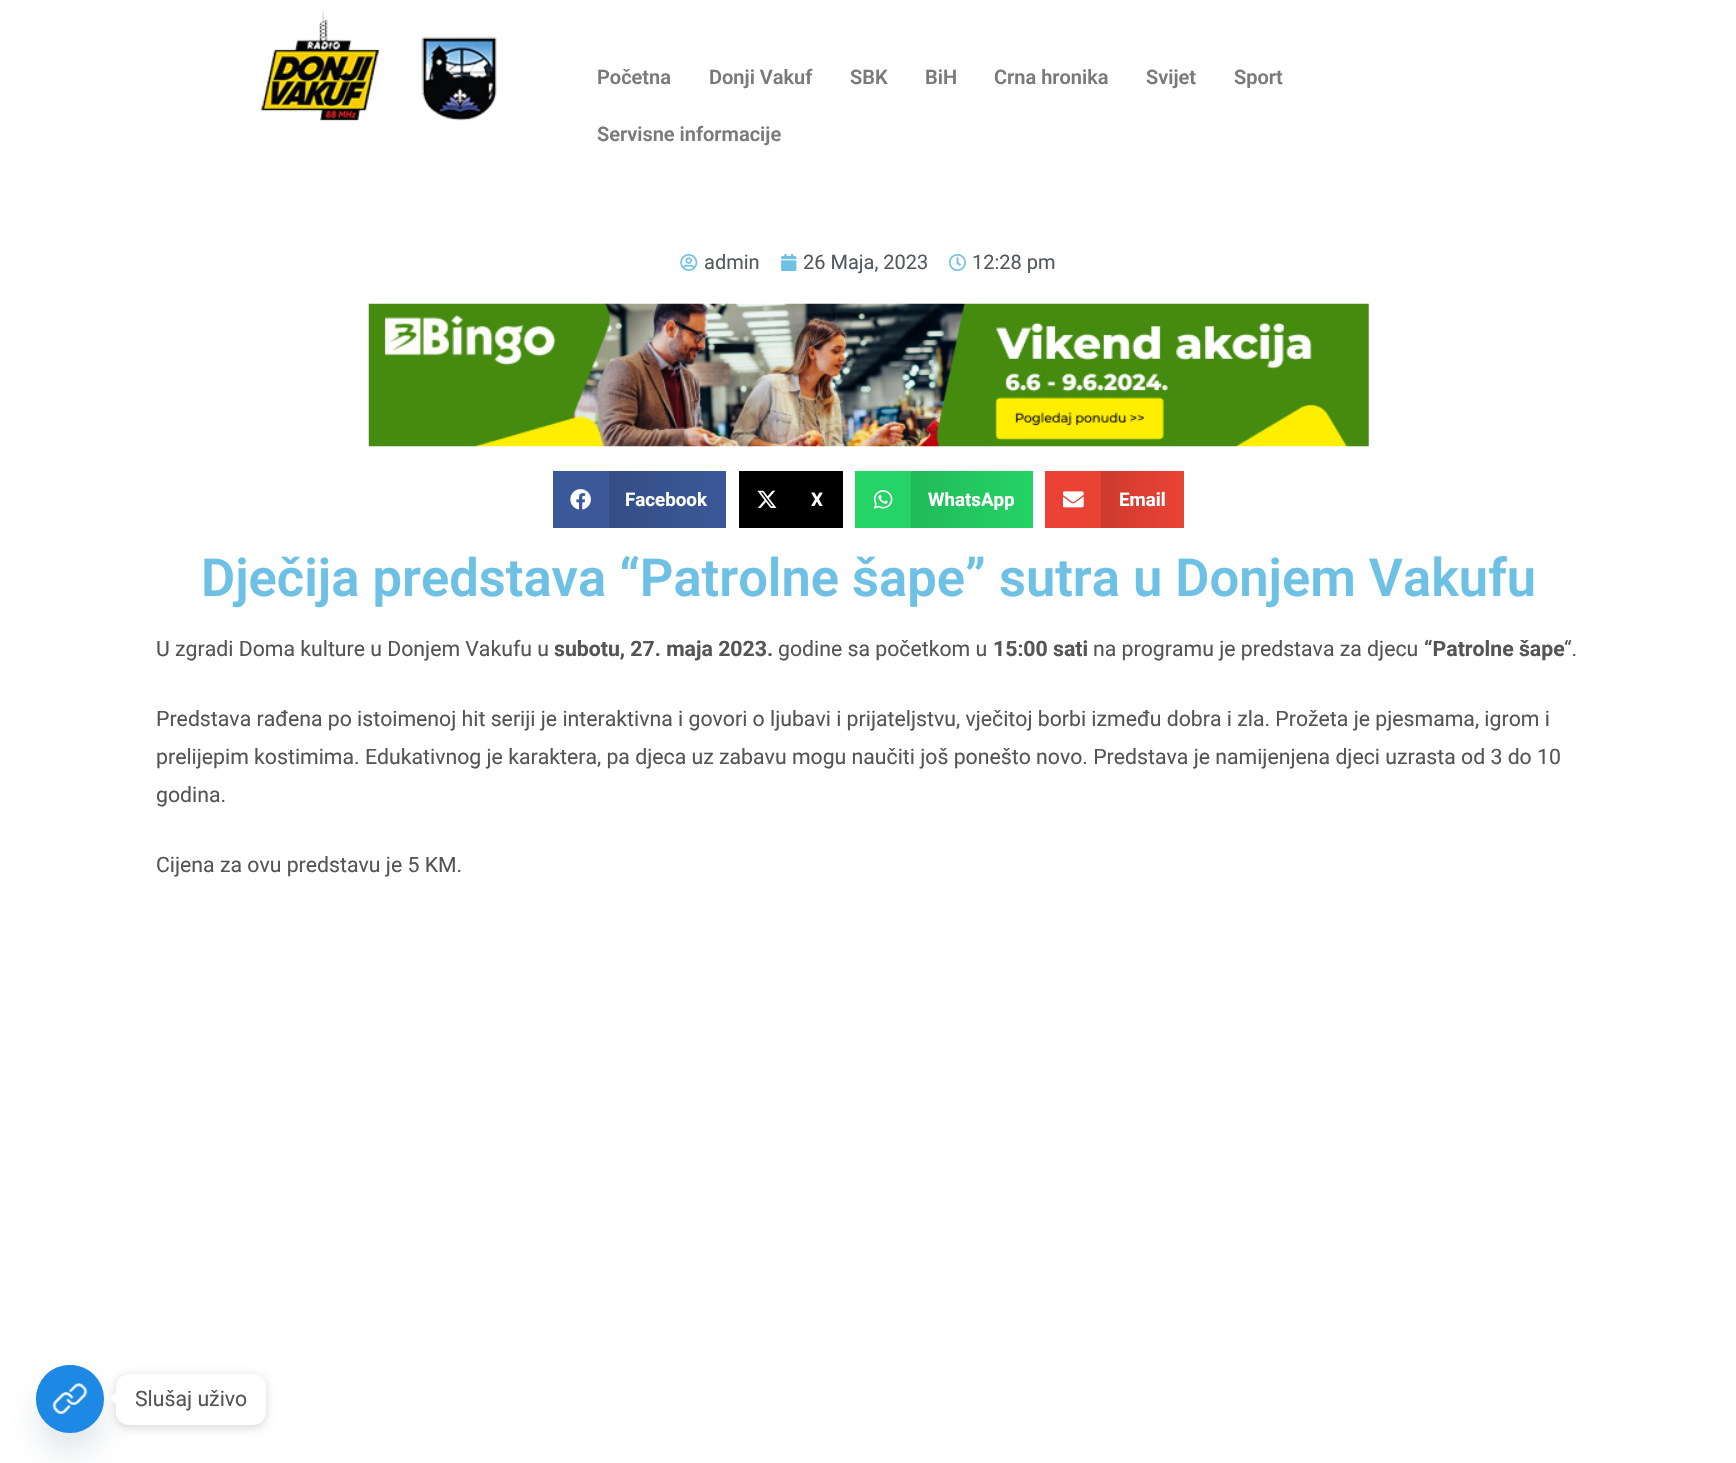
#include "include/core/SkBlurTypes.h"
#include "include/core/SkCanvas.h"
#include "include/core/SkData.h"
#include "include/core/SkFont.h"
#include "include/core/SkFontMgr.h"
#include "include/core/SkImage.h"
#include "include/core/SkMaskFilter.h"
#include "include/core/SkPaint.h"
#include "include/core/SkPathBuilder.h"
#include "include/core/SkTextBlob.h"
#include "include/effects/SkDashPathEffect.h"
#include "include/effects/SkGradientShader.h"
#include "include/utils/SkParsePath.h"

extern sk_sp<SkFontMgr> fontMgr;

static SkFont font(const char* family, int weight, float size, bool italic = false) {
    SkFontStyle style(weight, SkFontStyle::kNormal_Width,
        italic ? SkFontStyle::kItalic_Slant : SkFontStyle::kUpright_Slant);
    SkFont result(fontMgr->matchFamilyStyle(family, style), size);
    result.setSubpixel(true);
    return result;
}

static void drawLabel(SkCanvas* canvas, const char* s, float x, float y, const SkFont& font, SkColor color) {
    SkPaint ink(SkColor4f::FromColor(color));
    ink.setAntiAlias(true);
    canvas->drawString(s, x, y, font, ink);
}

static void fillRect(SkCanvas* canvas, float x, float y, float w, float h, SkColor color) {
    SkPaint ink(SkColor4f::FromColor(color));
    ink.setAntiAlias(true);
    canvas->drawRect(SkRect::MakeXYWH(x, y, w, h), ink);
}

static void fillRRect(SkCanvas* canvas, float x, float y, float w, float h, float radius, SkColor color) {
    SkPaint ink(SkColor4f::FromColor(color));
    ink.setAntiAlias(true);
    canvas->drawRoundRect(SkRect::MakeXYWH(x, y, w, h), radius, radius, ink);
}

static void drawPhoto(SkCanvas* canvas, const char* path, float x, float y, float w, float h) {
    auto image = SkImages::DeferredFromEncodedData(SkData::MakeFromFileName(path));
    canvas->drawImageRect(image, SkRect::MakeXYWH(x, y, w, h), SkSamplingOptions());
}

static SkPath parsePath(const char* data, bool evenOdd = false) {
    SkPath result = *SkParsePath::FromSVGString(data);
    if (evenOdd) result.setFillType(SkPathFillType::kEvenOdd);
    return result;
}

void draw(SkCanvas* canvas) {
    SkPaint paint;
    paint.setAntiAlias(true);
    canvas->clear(0xFFFFFFFF);
    drawPhoto(canvas, "assets/img1.png", 261, 12, 236, 109);
    SkFont font1 = font("Roboto", 600, 20);
    drawLabel(canvas, "Početna", 597, 84, font1, 0xFF7A7A7A);
    drawLabel(canvas, "Donji Vakuf", 709, 84, font1, 0xFF7A7A7A);
    drawLabel(canvas, "SBK", 850, 84, font1, 0xFF7A7A7A);
    drawLabel(canvas, "BiH", 925, 84, font1, 0xFF7A7A7A);
    drawLabel(canvas, "Crna hronika", 994, 84, font1, 0xFF7A7A7A);
    drawLabel(canvas, "Svijet", 1146, 84, font1, 0xFF7A7A7A);
    drawLabel(canvas, "Sport", 1234, 84, font1, 0xFF7A7A7A);
    drawLabel(canvas, "Servisne informacije", 597, 141, font1, 0xFF7A7A7A);
    drawPhoto(canvas, "assets/img2.png", 680, 254, 18, 17);
    SkFont font2 = font("Roboto", 400, 20);
    drawLabel(canvas, "admin", 704, 269, font2, 0xFF54595F);
    drawPhoto(canvas, "assets/img3.png", 781, 254, 16, 17);
    drawLabel(canvas, "26 Maja, 2023", 803, 269, font2, 0xFF54595F);
    drawPhoto(canvas, "assets/img4.png", 949, 254, 17, 17);
    drawLabel(canvas, "12:28 pm", 972, 269, font2, 0xFF54595F);
    drawPhoto(canvas, "assets/img5.png", 368, 303, 1001, 144);
    fillRect(canvas, 553, 471, 56, 57, 0xFF3B5998);
    drawPhoto(canvas, "assets/img6.png", 570, 489, 21, 21);
    {
        const SkColor colors[] = {0xFF344E86, 0xFF3B5998};
        const float stops[] = {0, 1};
        const SkPoint ends[] = {{609, 499}, {726, 499}};
        paint.setShader(SkGradientShader::MakeLinear(ends, colors, stops, 2, SkTileMode::kClamp));
        paint.setAlpha(255);
    }
    canvas->drawRect(SkRect::MakeXYWH(609, 471, 117, 57), paint);
    SkFont font3 = font("Roboto", 700, 18.75f);
    drawLabel(canvas, "Facebook", 625, 506, font3, 0xFFFFFFFF);
    fillRect(canvas, 739, 471, 104, 57, 0xFF000000);
    drawPhoto(canvas, "assets/img7.png", 757, 490, 20, 18);
    drawLabel(canvas, "X", 811, 506, font3, 0xFFFFFFFF);
    fillRect(canvas, 855, 471, 56, 57, 0xFF25D366);
    drawPhoto(canvas, "assets/img8.png", 873, 490, 20, 19);
    {
        const SkColor colors[] = {0xFF21BA5A, 0xFF25D366};
        const float stops[] = {0, 1};
        const SkPoint ends[] = {{911, 499}, {1033, 499}};
        paint.setShader(SkGradientShader::MakeLinear(ends, colors, stops, 2, SkTileMode::kClamp));
        paint.setAlpha(255);
    }
    canvas->drawRect(SkRect::MakeXYWH(911, 471, 122, 57), paint);
    drawLabel(canvas, "WhatsApp", 928, 506, font3, 0xFFFFFFFF);
    fillRect(canvas, 1045, 471, 56, 57, 0xFFEA4335);
    drawPhoto(canvas, "assets/img9.png", 1063, 491, 21, 17);
    {
        const SkColor colors[] = {0xFFCE3B2F, 0xFFEA4335};
        const float stops[] = {0, 1};
        const SkPoint ends[] = {{1101, 499}, {1184, 499}};
        paint.setShader(SkGradientShader::MakeLinear(ends, colors, stops, 2, SkTileMode::kClamp));
        paint.setAlpha(255);
    }
    canvas->drawRect(SkRect::MakeXYWH(1101, 471, 83, 57), paint);
    drawLabel(canvas, "Email", 1119, 506, font3, 0xFFFFFFFF);
    SkFont font4 = font("Roboto", 600, 52.5f);
    drawLabel(canvas, "Dječija predstava “Patrolne šape” sutra u Donjem Vakufu", 201, 596, font4, 0xFF6EC1E4);
    SkFont font5 = font("Roboto", 400, 21.25f);
    drawLabel(canvas, "U zgradi Doma kulture u Donjem Vakufu u", 156, 656, font5, 0xFF555555);
    SkFont font6 = font("Roboto", 700, 21.25f);
    drawLabel(canvas, "subotu, 27. maja 2023.", 554, 656, font6, 0xFF555555);
    drawLabel(canvas, "godine sa početkom u", 778, 656, font5, 0xFF555555);
    drawLabel(canvas, "15:00 sati", 993, 656, font6, 0xFF555555);
    drawLabel(canvas, "na programu je predstava za djecu", 1093, 656, font5, 0xFF555555);
    drawLabel(canvas, "“Patrolne šape", 1424, 656, font6, 0xFF555555);
    drawLabel(canvas, "“.", 1564, 656, font5, 0xFF555555);
    drawLabel(canvas, "Predstava rađena po istoimenoj hit seriji je interaktivna i govori o ljubavi i prijateljstvu, vječitoj borbi između dobra i zla. Prožeta je pjesmama, igrom i", 156, 726, font5, 0xFF555555);
    drawLabel(canvas, "prelijepim kostimima. Edukativnog je karaktera, pa djeca uz zabavu mogu naučiti još ponešto novo. Predstava je namijenjena djeci uzrasta od 3 do 10", 156, 764, font5, 0xFF555555);
    drawLabel(canvas, "godina.", 156, 802, font5, 0xFF555555);
    drawLabel(canvas, "Cijena za ovu predstavu je 5 KM.", 156, 872, font5, 0xFF555555);
    paint.setShader(nullptr);
    paint.setColor(0x2949687E);
    paint.setMaskFilter(SkMaskFilter::MakeBlur(kNormal_SkBlurStyle, 15));
    canvas->drawRoundRect(SkRect::MakeXYWH(36, 1385, 68, 68), 34, 34, paint);
    paint.setMaskFilter(nullptr);
    paint.setColor(0xFF1E88E5);
    canvas->drawCircle(70, 1399, 34, paint);
    drawPhoto(canvas, "assets/img10.png", 36, 1365, 69, 67);
    paint.setColor(0x26000000);
    paint.setMaskFilter(SkMaskFilter::MakeBlur(kNormal_SkBlurStyle, 5));
    canvas->drawRoundRect(SkRect::MakeXYWH(116, 1376, 150, 52), 13, 13, paint);
    paint.setMaskFilter(nullptr);
    fillRRect(canvas, 116, 1374, 150, 51, 13, 0xFFFFFFFF);
    paint.setColor(0xFFFFFFFF);
    canvas->drawPath(parsePath("M116 1392V1404.5L110 1398.5Z"), paint);
    drawLabel(canvas, "Slušaj uživo", 135, 1406, font5, 0xFF555555);
}
